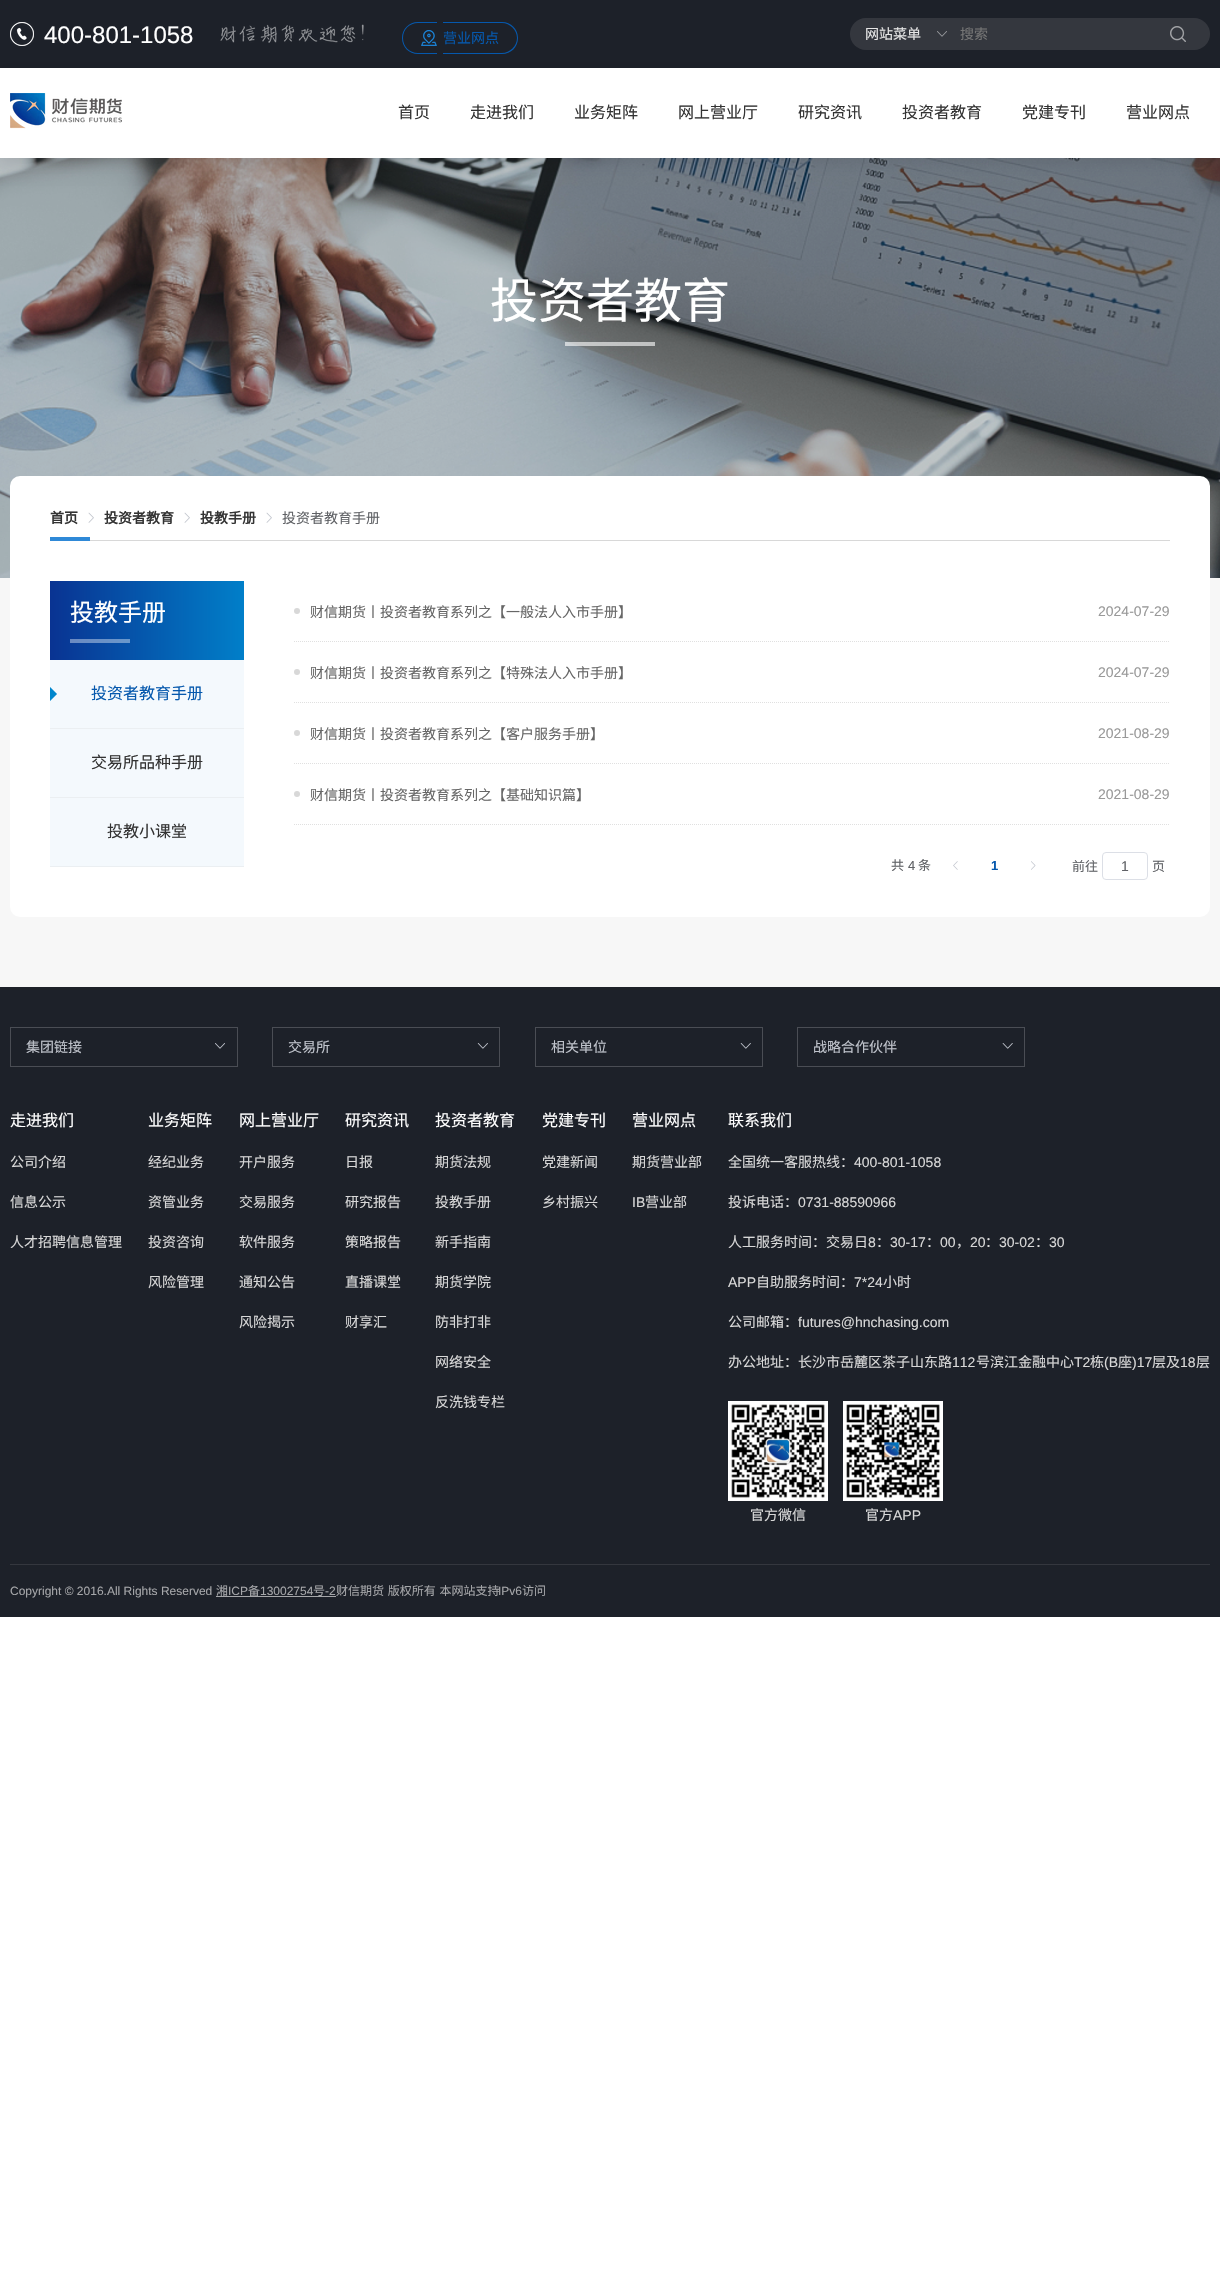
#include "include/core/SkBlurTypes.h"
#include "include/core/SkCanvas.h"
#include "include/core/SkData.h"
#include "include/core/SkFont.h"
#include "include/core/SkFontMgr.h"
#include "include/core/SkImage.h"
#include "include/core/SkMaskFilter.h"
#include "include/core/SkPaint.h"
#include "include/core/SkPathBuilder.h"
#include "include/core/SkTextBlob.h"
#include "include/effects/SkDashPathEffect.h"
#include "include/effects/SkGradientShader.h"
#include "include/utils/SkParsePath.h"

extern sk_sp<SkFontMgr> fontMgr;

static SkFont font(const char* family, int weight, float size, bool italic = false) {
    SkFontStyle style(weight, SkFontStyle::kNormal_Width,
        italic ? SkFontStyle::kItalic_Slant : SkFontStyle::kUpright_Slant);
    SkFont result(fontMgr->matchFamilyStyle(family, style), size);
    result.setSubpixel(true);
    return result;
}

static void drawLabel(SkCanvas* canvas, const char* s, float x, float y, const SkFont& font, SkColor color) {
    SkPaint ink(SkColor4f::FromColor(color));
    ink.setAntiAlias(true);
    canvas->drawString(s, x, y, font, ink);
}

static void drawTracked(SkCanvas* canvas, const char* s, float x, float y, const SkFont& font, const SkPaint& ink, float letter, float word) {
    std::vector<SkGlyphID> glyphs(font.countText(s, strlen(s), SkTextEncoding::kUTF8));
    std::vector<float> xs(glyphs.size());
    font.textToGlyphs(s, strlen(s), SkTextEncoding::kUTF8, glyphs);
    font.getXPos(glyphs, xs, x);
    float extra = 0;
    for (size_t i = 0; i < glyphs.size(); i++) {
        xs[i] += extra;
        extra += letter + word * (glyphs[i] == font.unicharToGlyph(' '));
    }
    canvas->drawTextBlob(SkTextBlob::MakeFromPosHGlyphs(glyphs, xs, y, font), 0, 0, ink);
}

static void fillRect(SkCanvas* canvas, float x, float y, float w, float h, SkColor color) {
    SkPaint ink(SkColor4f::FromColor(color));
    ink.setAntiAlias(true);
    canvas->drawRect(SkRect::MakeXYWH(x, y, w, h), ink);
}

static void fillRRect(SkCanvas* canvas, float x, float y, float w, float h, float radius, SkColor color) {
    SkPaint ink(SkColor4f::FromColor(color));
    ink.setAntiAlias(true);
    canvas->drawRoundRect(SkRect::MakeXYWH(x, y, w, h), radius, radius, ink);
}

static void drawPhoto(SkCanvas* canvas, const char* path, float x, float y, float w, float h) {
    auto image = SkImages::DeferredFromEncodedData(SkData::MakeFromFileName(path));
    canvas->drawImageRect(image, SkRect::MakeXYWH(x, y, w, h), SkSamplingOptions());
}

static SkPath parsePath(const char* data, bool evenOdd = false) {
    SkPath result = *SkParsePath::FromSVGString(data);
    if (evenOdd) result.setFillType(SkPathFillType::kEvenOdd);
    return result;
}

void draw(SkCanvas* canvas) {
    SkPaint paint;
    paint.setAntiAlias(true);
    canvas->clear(0xFFFFFFFF);
    fillRect(canvas, 0, 0, 1220, 68, 0xFF1D2129);
    drawPhoto(canvas, "assets/img1.png", 10, 22, 24, 24);
    SkFont font1 = font("Liberation Sans", 400, 24);
    drawLabel(canvas, "400-801-1058", 44, 43, font1, 0xFFFFFFFF);
    drawPhoto(canvas, "assets/img2.png", 220, 24, 144, 19);
    drawPhoto(canvas, "assets/img7.png", 0, 158, 1220, 420);
    canvas->save();
    canvas->clipPath(parsePath("M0 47H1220V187H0ZM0 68H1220V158H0Z", true), true);
    paint.setColor(0x1A000000);
    paint.setMaskFilter(SkMaskFilter::MakeBlur(kNormal_SkBlurStyle, 8));
    canvas->drawRect(SkRect::MakeXYWH(0, 72, 1220, 90), paint);
    paint.setMaskFilter(nullptr);
    canvas->restore();
    paint.setColor(0xFF0558AD);
    canvas->drawPath(parsePath("M418 22H437V54H418C409 54 402 47 402 38C402 29 409 22 418 22ZM418 23H437V53H418C409.5 53 403 46.5 403 38C403 29.5 409.5 23 418 23Z", true), paint);
    canvas->drawPath(parsePath("M443 22H502C511 22 518 29 518 38C518 47 511 54 502 54H443ZM443 23H502C510 23 517 30 517 38C517 46 510 53 502 53H443Z", true), paint);
    drawPhoto(canvas, "assets/img3.png", 421, 30, 16, 16);
    SkFont font2 = font("Noto Sans CJK SC", 400, 14);
    drawLabel(canvas, "营业网点", 443, 43, font2, 0xFF0558AD);
    fillRRect(canvas, 850, 18, 360, 32, 16, 0xFF34373E);
    drawLabel(canvas, "网站菜单", 865, 39, font2, 0xFFE6E6E6);
    drawPhoto(canvas, "assets/img4.png", 937, 31, 10, 6);
    drawLabel(canvas, "搜索", 960, 39, font2, 0xFF757575);
    drawPhoto(canvas, "assets/img5.png", 1170, 26, 16, 16);
    drawPhoto(canvas, "assets/img6.png", 10, 93, 112, 36);
    SkFont font3 = font("Noto Sans CJK SC", 400, 16);
    drawLabel(canvas, "首页", 398, 118, font3, 0xFF333333);
    drawLabel(canvas, "走进我们", 470, 118, font3, 0xFF333333);
    drawLabel(canvas, "业务矩阵", 574, 118, font3, 0xFF333333);
    drawLabel(canvas, "网上营业厅", 678, 118, font3, 0xFF333333);
    drawLabel(canvas, "研究资讯", 798, 118, font3, 0xFF333333);
    drawLabel(canvas, "投资者教育", 902, 118, font3, 0xFF333333);
    drawLabel(canvas, "党建专刊", 1022, 118, font3, 0xFF333333);
    drawLabel(canvas, "营业网点", 1126, 118, font3, 0xFF333333);
    fillRect(canvas, 0, 578, 1220, 409, 0xFFF7F7F7);
    SkFont font4 = font("Noto Sans CJK SC", 400, 48);
    drawLabel(canvas, "投资者教育", 490, 318, font4, 0xFFFFFFFF);
    fillRect(canvas, 565, 342, 90, 4, 0x99FFFFFF);
    fillRRect(canvas, 10, 476, 1200, 441, 10, 0xFFFFFFFF);
    fillRect(canvas, 90, 540, 1080, 1, 0xFFD8D8D8);
    SkFont font5 = font("Noto Sans CJK SC", 700, 14);
    drawLabel(canvas, "首页", 50, 523, font5, 0xFF333333);
    drawPhoto(canvas, "assets/img8.png", 88, 512, 6, 11);
    drawLabel(canvas, "投资者教育", 104, 523, font5, 0xFF333333);
    drawPhoto(canvas, "assets/img8.png", 184, 512, 6, 11);
    drawLabel(canvas, "投教手册", 200, 523, font5, 0xFF333333);
    drawPhoto(canvas, "assets/img8.png", 266, 512, 6, 11);
    drawLabel(canvas, "投资者教育手册", 282, 523, font2, 0xFF606266);
    fillRect(canvas, 50, 537, 40, 4, 0xFF2F89D7);
    {
        const SkColor colors[] = {0xFF093392, 0xFF017FC9};
        const float stops[] = {0, 1};
        const SkPoint ends[] = {{50, 621}, {244, 621}};
        paint.setShader(SkGradientShader::MakeLinear(ends, colors, stops, 2, SkTileMode::kClamp));
        paint.setAlpha(255);
    }
    canvas->drawRect(SkRect::MakeXYWH(50, 581, 194, 79), paint);
    {
        const SkColor colors[] = {0xFF6B85BE, 0xFF67B2DF};
        const float stops[] = {0, 1};
        const SkPoint ends[] = {{50, 621}, {244, 621}};
        paint.setShader(SkGradientShader::MakeLinear(ends, colors, stops, 2, SkTileMode::kClamp));
        paint.setAlpha(255);
    }
    canvas->drawRect(SkRect::MakeXYWH(70, 639, 60, 4), paint);
    SkFont font6 = font("Noto Sans CJK SC", 400, 24);
    drawLabel(canvas, "投教手册", 70, 621, font6, 0xFFFFFFFF);
    fillRect(canvas, 50, 660, 194, 206, 0xFFF4F9FD);
    drawPhoto(canvas, "assets/img9.png", 50, 687, 7, 14);
    fillRect(canvas, 50, 728, 194, 1, 0xFFEBEFF2);
    drawLabel(canvas, "投资者教育手册", 91, 699, font3, 0xFF0558AD);
    fillRect(canvas, 50, 797, 194, 1, 0xFFEBEFF2);
    drawLabel(canvas, "交易所品种手册", 91, 768, font3, 0xFF333333);
    fillRect(canvas, 50, 866, 194, 1, 0xFFEBEFF2);
    drawLabel(canvas, "投教小课堂", 107, 837, font3, 0xFF333333);
    paint.setStroke(true);
    paint.setStrokeWidth(1);
    paint.setShader(nullptr);
    paint.setColor(0xFFE0E0E0);
    paint.setPathEffect(SkDashPathEffect::Make({{1, 1}}, 0));
    canvas->drawPath(parsePath("M294 641.5H1170"), paint);
    paint.setPathEffect(nullptr);
    paint.setStroke(false);
    paint.setColor(0xFFD8D8D8);
    canvas->drawCircle(297, 611, 3, paint);
    drawLabel(canvas, "财信期货丨投资者教育系列之【一般法人入市手册】", 310, 617, font2, 0xFF666666);
    SkFont font7 = font("Liberation Sans", 400, 14);
    drawLabel(canvas, "2024-07-29", 1098, 616, font7, 0xFF999999);
    paint.setStroke(true);
    paint.setColor(0xFFE0E0E0);
    paint.setPathEffect(SkDashPathEffect::Make({{1, 1}}, 0));
    canvas->drawPath(parsePath("M294 702.5H1170"), paint);
    paint.setPathEffect(nullptr);
    paint.setStroke(false);
    paint.setColor(0xFFD8D8D8);
    canvas->drawCircle(297, 672, 3, paint);
    drawLabel(canvas, "财信期货丨投资者教育系列之【特殊法人入市手册】", 310, 678, font2, 0xFF666666);
    drawLabel(canvas, "2024-07-29", 1098, 677, font7, 0xFF999999);
    paint.setStroke(true);
    paint.setColor(0xFFE0E0E0);
    paint.setPathEffect(SkDashPathEffect::Make({{1, 1}}, 0));
    canvas->drawPath(parsePath("M294 763.5H1170"), paint);
    paint.setPathEffect(nullptr);
    paint.setStroke(false);
    paint.setColor(0xFFD8D8D8);
    canvas->drawCircle(297, 733, 3, paint);
    drawLabel(canvas, "财信期货丨投资者教育系列之【客户服务手册】", 310, 739, font2, 0xFF666666);
    drawLabel(canvas, "2021-08-29", 1098, 738, font7, 0xFF999999);
    paint.setStroke(true);
    paint.setColor(0xFFE0E0E0);
    paint.setPathEffect(SkDashPathEffect::Make({{1, 1}}, 0));
    canvas->drawPath(parsePath("M294 824.5H1170"), paint);
    paint.setPathEffect(nullptr);
    paint.setStroke(false);
    paint.setColor(0xFFD8D8D8);
    canvas->drawCircle(297, 794, 3, paint);
    drawLabel(canvas, "财信期货丨投资者教育系列之【基础知识篇】", 310, 800, font2, 0xFF666666);
    drawLabel(canvas, "2021-08-29", 1098, 799, font7, 0xFF999999);
    SkFont font8 = font("Noto Sans CJK SC", 400, 13);
    drawLabel(canvas, "共", 891, 870, font8, 0xFF606266);
    SkFont font9 = font("Liberation Sans", 400, 13);
    drawLabel(canvas, "4", 908, 870, font9, 0xFF606266);
    drawLabel(canvas, "条", 918, 870, font8, 0xFF606266);
    drawPhoto(canvas, "assets/img10.png", 953, 861, 5, 9);
    SkFont font10 = font("Liberation Sans", 700, 13);
    drawLabel(canvas, "1", 991, 870, font10, 0xFF0558AD);
    drawPhoto(canvas, "assets/img11.png", 1031, 861, 5, 9);
    drawLabel(canvas, "前往", 1072, 871, font8, 0xFF606266);
    paint.setStroke(true);
    paint.setColor(0xFFDCDFE6);
    canvas->drawRoundRect(SkRect::MakeXYWH(1102.5f, 852.5f, 45, 27), 3.5f, 3.5f, paint);
    drawLabel(canvas, "1", 1121, 871, font7, 0xFF606266);
    drawLabel(canvas, "页", 1152, 871, font8, 0xFF606266);
    fillRect(canvas, 0, 987, 1220, 630, 0xFF1D2129);
    paint.setColor(0xFF4A4D54);
    canvas->drawRect(SkRect::MakeXYWH(10.5f, 1027.5f, 227, 39), paint);
    drawLabel(canvas, "集团链接", 26, 1052, font2, 0xFFC0C4CC);
    drawPhoto(canvas, "assets/img12.png", 215, 1043, 10, 6);
    canvas->drawRect(SkRect::MakeXYWH(272.5f, 1027.5f, 227, 39), paint);
    drawLabel(canvas, "交易所", 288, 1052, font2, 0xFFC0C4CC);
    drawPhoto(canvas, "assets/img13.png", 477, 1043, 11, 6);
    canvas->drawRect(SkRect::MakeXYWH(535.5f, 1027.5f, 227, 39), paint);
    drawLabel(canvas, "相关单位", 551, 1052, font2, 0xFFC0C4CC);
    drawPhoto(canvas, "assets/img14.png", 740, 1043, 11, 6);
    canvas->drawRect(SkRect::MakeXYWH(797.5f, 1027.5f, 227, 39), paint);
    drawLabel(canvas, "战略合作伙伴", 813, 1052, font2, 0xFFC0C4CC);
    drawPhoto(canvas, "assets/img15.png", 1002, 1043, 11, 6);
    drawLabel(canvas, "走进我们", 10, 1126, font3, 0xFFFFFFFF);
    drawLabel(canvas, "公司介绍", 10, 1167, font2, 0xFFD8D8D8);
    drawLabel(canvas, "信息公示", 10, 1207, font2, 0xFFD8D8D8);
    drawLabel(canvas, "人才招聘信息管理", 10, 1247, font2, 0xFFD8D8D8);
    drawLabel(canvas, "业务矩阵", 148, 1126, font3, 0xFFFFFFFF);
    drawLabel(canvas, "经纪业务", 148, 1167, font2, 0xFFD8D8D8);
    drawLabel(canvas, "资管业务", 148, 1207, font2, 0xFFD8D8D8);
    drawLabel(canvas, "投资咨询", 148, 1247, font2, 0xFFD8D8D8);
    drawLabel(canvas, "风险管理", 148, 1287, font2, 0xFFD8D8D8);
    drawLabel(canvas, "网上营业厅", 239, 1126, font3, 0xFFFFFFFF);
    drawLabel(canvas, "开户服务", 239, 1167, font2, 0xFFD8D8D8);
    drawLabel(canvas, "交易服务", 239, 1207, font2, 0xFFD8D8D8);
    drawLabel(canvas, "软件服务", 239, 1247, font2, 0xFFD8D8D8);
    drawLabel(canvas, "通知公告", 239, 1287, font2, 0xFFD8D8D8);
    drawLabel(canvas, "风险揭示", 239, 1327, font2, 0xFFD8D8D8);
    drawLabel(canvas, "研究资讯", 345, 1126, font3, 0xFFFFFFFF);
    drawLabel(canvas, "日报", 345, 1167, font2, 0xFFD8D8D8);
    drawLabel(canvas, "研究报告", 345, 1207, font2, 0xFFD8D8D8);
    drawLabel(canvas, "策略报告", 345, 1247, font2, 0xFFD8D8D8);
    drawLabel(canvas, "直播课堂", 345, 1287, font2, 0xFFD8D8D8);
    drawLabel(canvas, "财享汇", 345, 1327, font2, 0xFFD8D8D8);
    drawLabel(canvas, "投资者教育", 435, 1126, font3, 0xFFFFFFFF);
    drawLabel(canvas, "期货法规", 435, 1167, font2, 0xFFD8D8D8);
    drawLabel(canvas, "投教手册", 435, 1207, font2, 0xFFD8D8D8);
    drawLabel(canvas, "新手指南", 435, 1247, font2, 0xFFD8D8D8);
    drawLabel(canvas, "期货学院", 435, 1287, font2, 0xFFD8D8D8);
    drawLabel(canvas, "防非打非", 435, 1327, font2, 0xFFD8D8D8);
    drawLabel(canvas, "网络安全", 435, 1367, font2, 0xFFD8D8D8);
    drawLabel(canvas, "反洗钱专栏", 435, 1407, font2, 0xFFD8D8D8);
    drawLabel(canvas, "党建专刊", 542, 1126, font3, 0xFFFFFFFF);
    drawLabel(canvas, "党建新闻", 542, 1167, font2, 0xFFD8D8D8);
    drawLabel(canvas, "乡村振兴", 542, 1207, font2, 0xFFD8D8D8);
    drawLabel(canvas, "营业网点", 632, 1126, font3, 0xFFFFFFFF);
    drawLabel(canvas, "期货营业部", 632, 1167, font2, 0xFFD8D8D8);
    drawLabel(canvas, "IB", 632, 1207, font7, 0xFFD8D8D8);
    drawLabel(canvas, "营业部", 645, 1207, font2, 0xFFD8D8D8);
    drawLabel(canvas, "联系我们", 728, 1126, font3, 0xFFFFFFFF);
    drawLabel(canvas, "全国统一客服热线：", 728, 1167, font2, 0xFFD8D8D8);
    drawLabel(canvas, "400-801-1058", 854, 1167, font7, 0xFFD8D8D8);
    drawLabel(canvas, "投诉电话：", 728, 1207, font2, 0xFFD8D8D8);
    drawLabel(canvas, "0731-88590966", 798, 1207, font7, 0xFFD8D8D8);
    drawLabel(canvas, "人工服务时间：交易日", 728, 1247, font2, 0xFFD8D8D8);
    drawLabel(canvas, "8", 868, 1247, font7, 0xFFD8D8D8);
    drawLabel(canvas, "：", 876, 1247, font2, 0xFFD8D8D8);
    drawLabel(canvas, "30-17", 890, 1247, font7, 0xFFD8D8D8);
    drawLabel(canvas, "：", 926, 1247, font2, 0xFFD8D8D8);
    drawLabel(canvas, "00", 940, 1247, font7, 0xFFD8D8D8);
    drawLabel(canvas, "，", 956, 1247, font2, 0xFFD8D8D8);
    drawLabel(canvas, "20", 970, 1247, font7, 0xFFD8D8D8);
    drawLabel(canvas, "：", 985, 1247, font2, 0xFFD8D8D8);
    drawLabel(canvas, "30-02", 999, 1247, font7, 0xFFD8D8D8);
    drawLabel(canvas, "：", 1035, 1247, font2, 0xFFD8D8D8);
    drawLabel(canvas, "30", 1049, 1247, font7, 0xFFD8D8D8);
    drawLabel(canvas, "APP", 728, 1287, font7, 0xFFD8D8D8);
    drawLabel(canvas, "自助服务时间：", 756, 1287, font2, 0xFFD8D8D8);
    drawLabel(canvas, "7*24", 854, 1287, font7, 0xFFD8D8D8);
    drawLabel(canvas, "小时", 883, 1287, font2, 0xFFD8D8D8);
    drawLabel(canvas, "公司邮箱：", 728, 1327, font2, 0xFFD8D8D8);
    drawLabel(canvas, "futures@hnchasing.com", 798, 1327, font7, 0xFFD8D8D8);
    drawLabel(canvas, "办公地址：长沙市岳麓区茶子山东路", 728, 1367, font2, 0xFFD8D8D8);
    drawLabel(canvas, "112", 952, 1367, font7, 0xFFD8D8D8);
    drawLabel(canvas, "号滨江金融中心", 976, 1367, font2, 0xFFD8D8D8);
    drawLabel(canvas, "T2", 1074, 1367, font7, 0xFFD8D8D8);
    drawLabel(canvas, "栋", 1090, 1367, font2, 0xFFD8D8D8);
    drawLabel(canvas, "(B", 1104, 1367, font7, 0xFFD8D8D8);
    drawLabel(canvas, "座", 1118, 1367, font2, 0xFFD8D8D8);
    drawLabel(canvas, ")17", 1132, 1367, font7, 0xFFD8D8D8);
    drawLabel(canvas, "层及", 1152, 1367, font2, 0xFFD8D8D8);
    drawLabel(canvas, "18", 1180, 1367, font7, 0xFFD8D8D8);
    drawLabel(canvas, "层", 1196, 1367, font2, 0xFFD8D8D8);
    drawPhoto(canvas, "assets/img16.png", 728, 1401, 100, 100);
    drawLabel(canvas, "官方微信", 750, 1520, font2, 0xFFD8D8D8);
    drawPhoto(canvas, "assets/img17.png", 843, 1401, 100, 100);
    drawLabel(canvas, "官方", 865, 1520, font2, 0xFFD8D8D8);
    drawLabel(canvas, "APP", 893, 1520, font7, 0xFFD8D8D8);
    fillRect(canvas, 10, 1564, 1200, 1, 0xFF34373E);
    SkFont font11 = font("Liberation Sans", 400, 12);
    drawLabel(canvas, "Copyright © 2016.All Rights Reserved", 10, 1595, font11, 0xFFA5A6A9);
    SkFont font12 = font("Noto Sans CJK SC", 400, 12);
    drawLabel(canvas, "湘", 216, 1595, font12, 0xFFA5A6A9);
    drawLabel(canvas, "ICP", 228, 1595, font11, 0xFFA5A6A9);
    fillRect(canvas, 216, 1596, 120, 1, 0xFFA5A6A9);
    drawLabel(canvas, "备", 248, 1595, font12, 0xFFA5A6A9);
    drawLabel(canvas, "13002754", 260, 1595, font11, 0xFFA5A6A9);
    drawLabel(canvas, "号", 313, 1595, font12, 0xFFA5A6A9);
    drawLabel(canvas, "-2", 325, 1595, font11, 0xFFA5A6A9);
    paint.setStroke(false);
    paint.setColor(0xFFA5A6A9);
    drawTracked(canvas, "财信期货 版权所有 本网站支持", 336, 1595, font12, paint, 0, 1);
    drawLabel(canvas, "IPv6", 498, 1595, font11, 0xFFA5A6A9);
    drawLabel(canvas, "访问", 522, 1595, font12, 0xFFA5A6A9);
}
